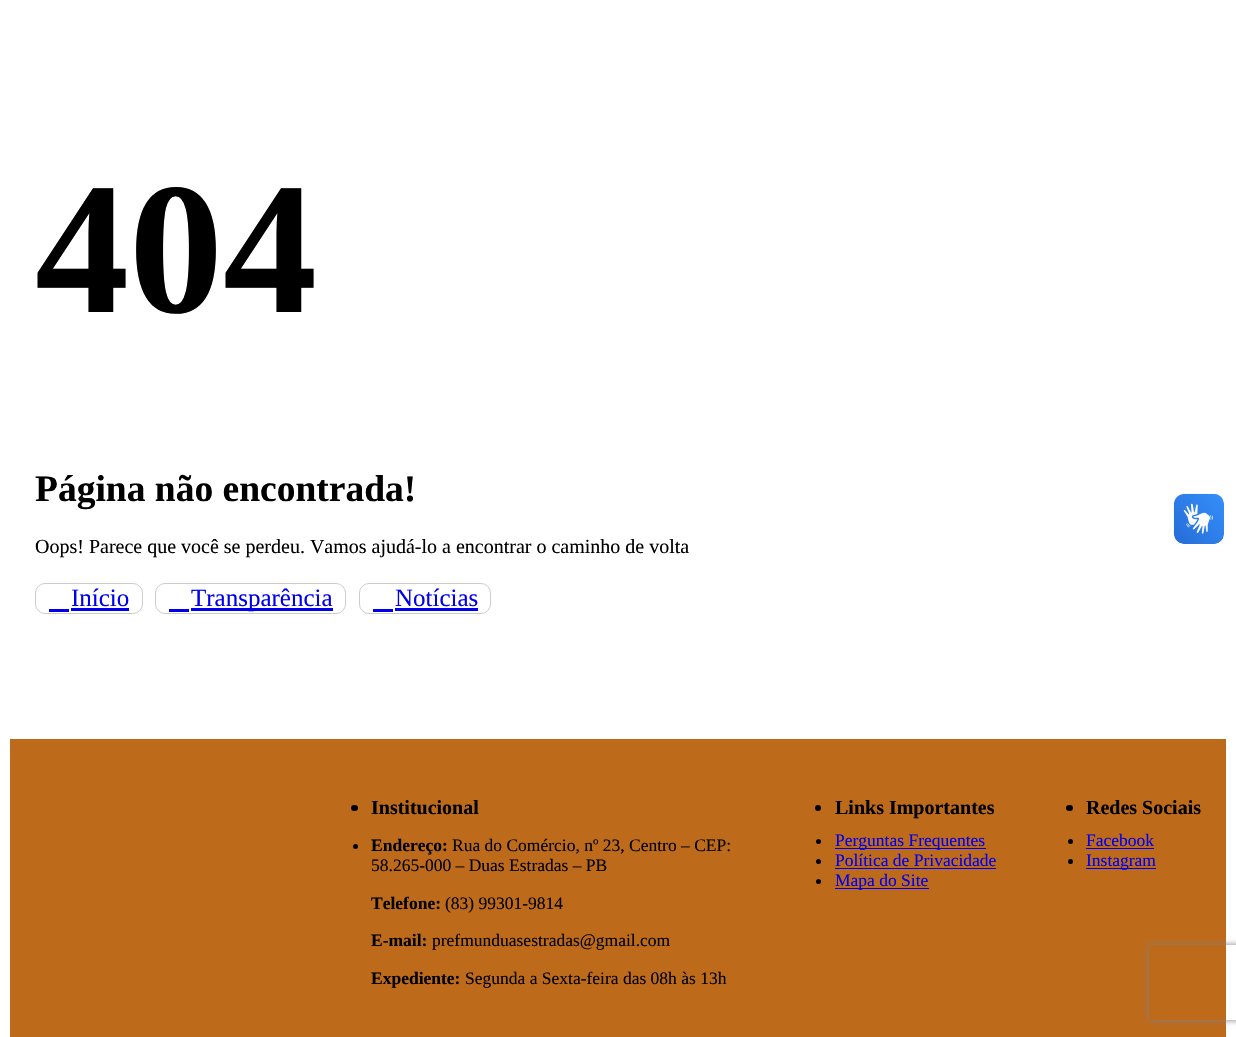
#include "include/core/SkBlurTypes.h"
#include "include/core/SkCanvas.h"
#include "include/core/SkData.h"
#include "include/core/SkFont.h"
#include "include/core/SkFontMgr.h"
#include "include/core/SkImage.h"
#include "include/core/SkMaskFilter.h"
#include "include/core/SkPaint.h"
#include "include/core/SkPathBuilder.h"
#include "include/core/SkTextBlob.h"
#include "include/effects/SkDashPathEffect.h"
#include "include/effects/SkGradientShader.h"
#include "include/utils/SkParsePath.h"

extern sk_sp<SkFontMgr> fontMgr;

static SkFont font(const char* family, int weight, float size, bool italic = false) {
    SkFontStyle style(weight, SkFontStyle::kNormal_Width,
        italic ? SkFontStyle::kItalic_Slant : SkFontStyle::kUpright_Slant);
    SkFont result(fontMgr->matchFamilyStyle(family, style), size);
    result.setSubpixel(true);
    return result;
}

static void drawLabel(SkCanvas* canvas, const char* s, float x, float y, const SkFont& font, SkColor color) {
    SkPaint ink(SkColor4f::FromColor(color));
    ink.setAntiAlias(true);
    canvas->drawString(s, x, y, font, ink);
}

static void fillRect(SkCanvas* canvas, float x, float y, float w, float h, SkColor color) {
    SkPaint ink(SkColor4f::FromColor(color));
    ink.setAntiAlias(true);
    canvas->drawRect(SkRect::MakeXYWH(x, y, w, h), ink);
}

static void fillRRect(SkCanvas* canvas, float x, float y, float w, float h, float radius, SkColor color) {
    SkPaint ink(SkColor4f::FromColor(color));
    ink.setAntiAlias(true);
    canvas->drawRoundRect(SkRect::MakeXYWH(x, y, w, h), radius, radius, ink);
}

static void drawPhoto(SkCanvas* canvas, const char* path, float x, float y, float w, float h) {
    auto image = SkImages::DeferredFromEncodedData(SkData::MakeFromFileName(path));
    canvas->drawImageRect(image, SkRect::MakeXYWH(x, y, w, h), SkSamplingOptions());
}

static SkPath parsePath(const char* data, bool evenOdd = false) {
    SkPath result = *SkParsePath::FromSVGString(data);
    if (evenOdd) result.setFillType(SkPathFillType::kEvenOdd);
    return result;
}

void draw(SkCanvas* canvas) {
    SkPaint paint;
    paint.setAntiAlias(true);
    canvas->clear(0xFFFFFFFF);
    SkFont font1 = font("Liberation Serif", 700, 188);
    drawLabel(canvas, "404", 35, 312, font1, 0xFF000000);
    SkFont font2 = font("Liberation Serif", 700, 37.5f);
    drawLabel(canvas, "Página não encontrada!", 35, 501, font2, 0xFF000000);
    SkFont font3 = font("Liberation Serif", 400, 20);
    drawLabel(canvas, "Oops! Parece que você se perdeu. Vamos ajudá-lo a encontrar o caminho de volta", 35, 553, font3, 0xFF000000);
    paint.setStroke(true);
    paint.setStrokeWidth(1);
    paint.setColor(0xFFCCCCCC);
    canvas->drawRoundRect(SkRect::MakeXYWH(35.5f, 583.5f, 107, 30), 9.5f, 9.5f, paint);
    SkFont font4 = font("Liberation Serif", 400, 25);
    drawLabel(canvas, "Início", 71, 606, font4, 0xFF0000EE);
    fillRect(canvas, 71, 608, 58, 3, 0xFF0000EE);
    fillRect(canvas, 49, 609, 20, 3, 0xFF0000EE);
    canvas->drawRoundRect(SkRect::MakeXYWH(155.5f, 583.5f, 190, 30), 9.5f, 9.5f, paint);
    fillRect(canvas, 169, 609, 20, 3, 0xFF0000EE);
    fillRect(canvas, 191, 608, 142, 3, 0xFF0000EE);
    drawLabel(canvas, "Transparência", 191, 606, font4, 0xFF0000EE);
    canvas->drawRoundRect(SkRect::MakeXYWH(359.5f, 583.5f, 131, 30), 9.5f, 9.5f, paint);
    drawLabel(canvas, "Notícias", 395, 606, font4, 0xFF0000EE);
    fillRect(canvas, 395, 608, 83, 3, 0xFF0000EE);
    fillRect(canvas, 373, 609, 20, 3, 0xFF0000EE);
    drawPhoto(canvas, "assets/img1.png", 1173, 493, 51, 51);
    drawPhoto(canvas, "assets/img2.png", 1174, 494, 50, 50);
    fillRect(canvas, 10, 739, 1216, 298, 0xFFBE6A1B);
    fillRRect(canvas, 351, 805, 7, 6, 3, 0xFF000000);
    SkFont font5 = font("Liberation Serif", 700, 20);
    drawLabel(canvas, "Institucional", 371, 814, font5, 0xFF000000);
    paint.setStroke(false);
    paint.setColor(0xFF000000);
    canvas->drawCircle(355.5f, 846.5f, 2.5f, paint);
    SkFont font6 = font("Liberation Serif", 700, 17.5f);
    drawLabel(canvas, "Endereço:", 371, 851, font6, 0xFF000000);
    SkFont font7 = font("Liberation Serif", 400, 17.5f);
    drawLabel(canvas, "Rua do Comércio, nº 23, Centro – CEP:", 452, 851, font7, 0xFF000000);
    drawLabel(canvas, "58.265-000 – Duas Estradas – PB", 371, 871, font7, 0xFF000000);
    drawLabel(canvas, "Telefone:", 371, 909, font6, 0xFF000000);
    drawLabel(canvas, "(83) 99301-9814", 445, 909, font7, 0xFF000000);
    drawLabel(canvas, "E-mail:", 371, 946, font6, 0xFF000000);
    drawLabel(canvas, "prefmunduasestradas@gmail.com", 432, 946, font7, 0xFF000000);
    drawLabel(canvas, "Expediente:", 371, 984, font6, 0xFF000000);
    drawLabel(canvas, "Segunda a Sexta-feira das 08h às 13h", 465, 984, font7, 0xFF000000);
    canvas->drawCircle(818, 808, 3, paint);
    drawLabel(canvas, "Links Importantes", 835, 814, font5, 0xFF000000);
    canvas->drawCircle(818.5f, 841.5f, 2.5f, paint);
    fillRect(canvas, 835, 848, 151, 1, 0xFF0000EE);
    drawLabel(canvas, "Perguntas Frequentes", 835, 846, font7, 0xFF0000EE);
    canvas->drawCircle(818.5f, 861.5f, 2.5f, paint);
    drawLabel(canvas, "Política de Privacidade", 835, 866, font7, 0xFF0000EE);
    fillRect(canvas, 835, 868, 161, 1, 0xFF0000EE);
    canvas->drawCircle(818.5f, 881.5f, 2.5f, paint);
    fillRect(canvas, 835, 888, 94, 1, 0xFF0000EE);
    drawLabel(canvas, "Mapa do Site", 835, 886, font7, 0xFF0000EE);
    fillRRect(canvas, 1066, 805, 7, 6, 3, 0xFF000000);
    drawLabel(canvas, "Redes Sociais", 1086, 814, font5, 0xFF000000);
    canvas->drawCircle(1070.5f, 841.5f, 2.5f, paint);
    drawLabel(canvas, "Facebook", 1086, 846, font7, 0xFF0000EE);
    fillRect(canvas, 1086, 848, 68, 1, 0xFF0000EE);
    canvas->drawCircle(1070.5f, 861.5f, 2.5f, paint);
    fillRect(canvas, 1086, 868, 70, 1, 0xFF0000EE);
    drawLabel(canvas, "Instagram", 1086, 866, font7, 0xFF0000EE);
    canvas->save();
    canvas->clipPath(parsePath("M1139 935H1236V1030H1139ZM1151.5 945H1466.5C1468 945 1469 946 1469 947.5V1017.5C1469 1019 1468 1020 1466.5 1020H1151.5C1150 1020 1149 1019 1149 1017.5V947.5C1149 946 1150 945 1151.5 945Z", true), true);
    paint.setColor(0xFF808080);
    paint.setMaskFilter(SkMaskFilter::MakeBlur(kNormal_SkBlurStyle, 3));
    canvas->drawRoundRect(SkRect::MakeXYWH(1149, 945, 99, 75), 2.5f, 2.5f, paint);
    paint.setMaskFilter(nullptr);
    canvas->restore();
}
